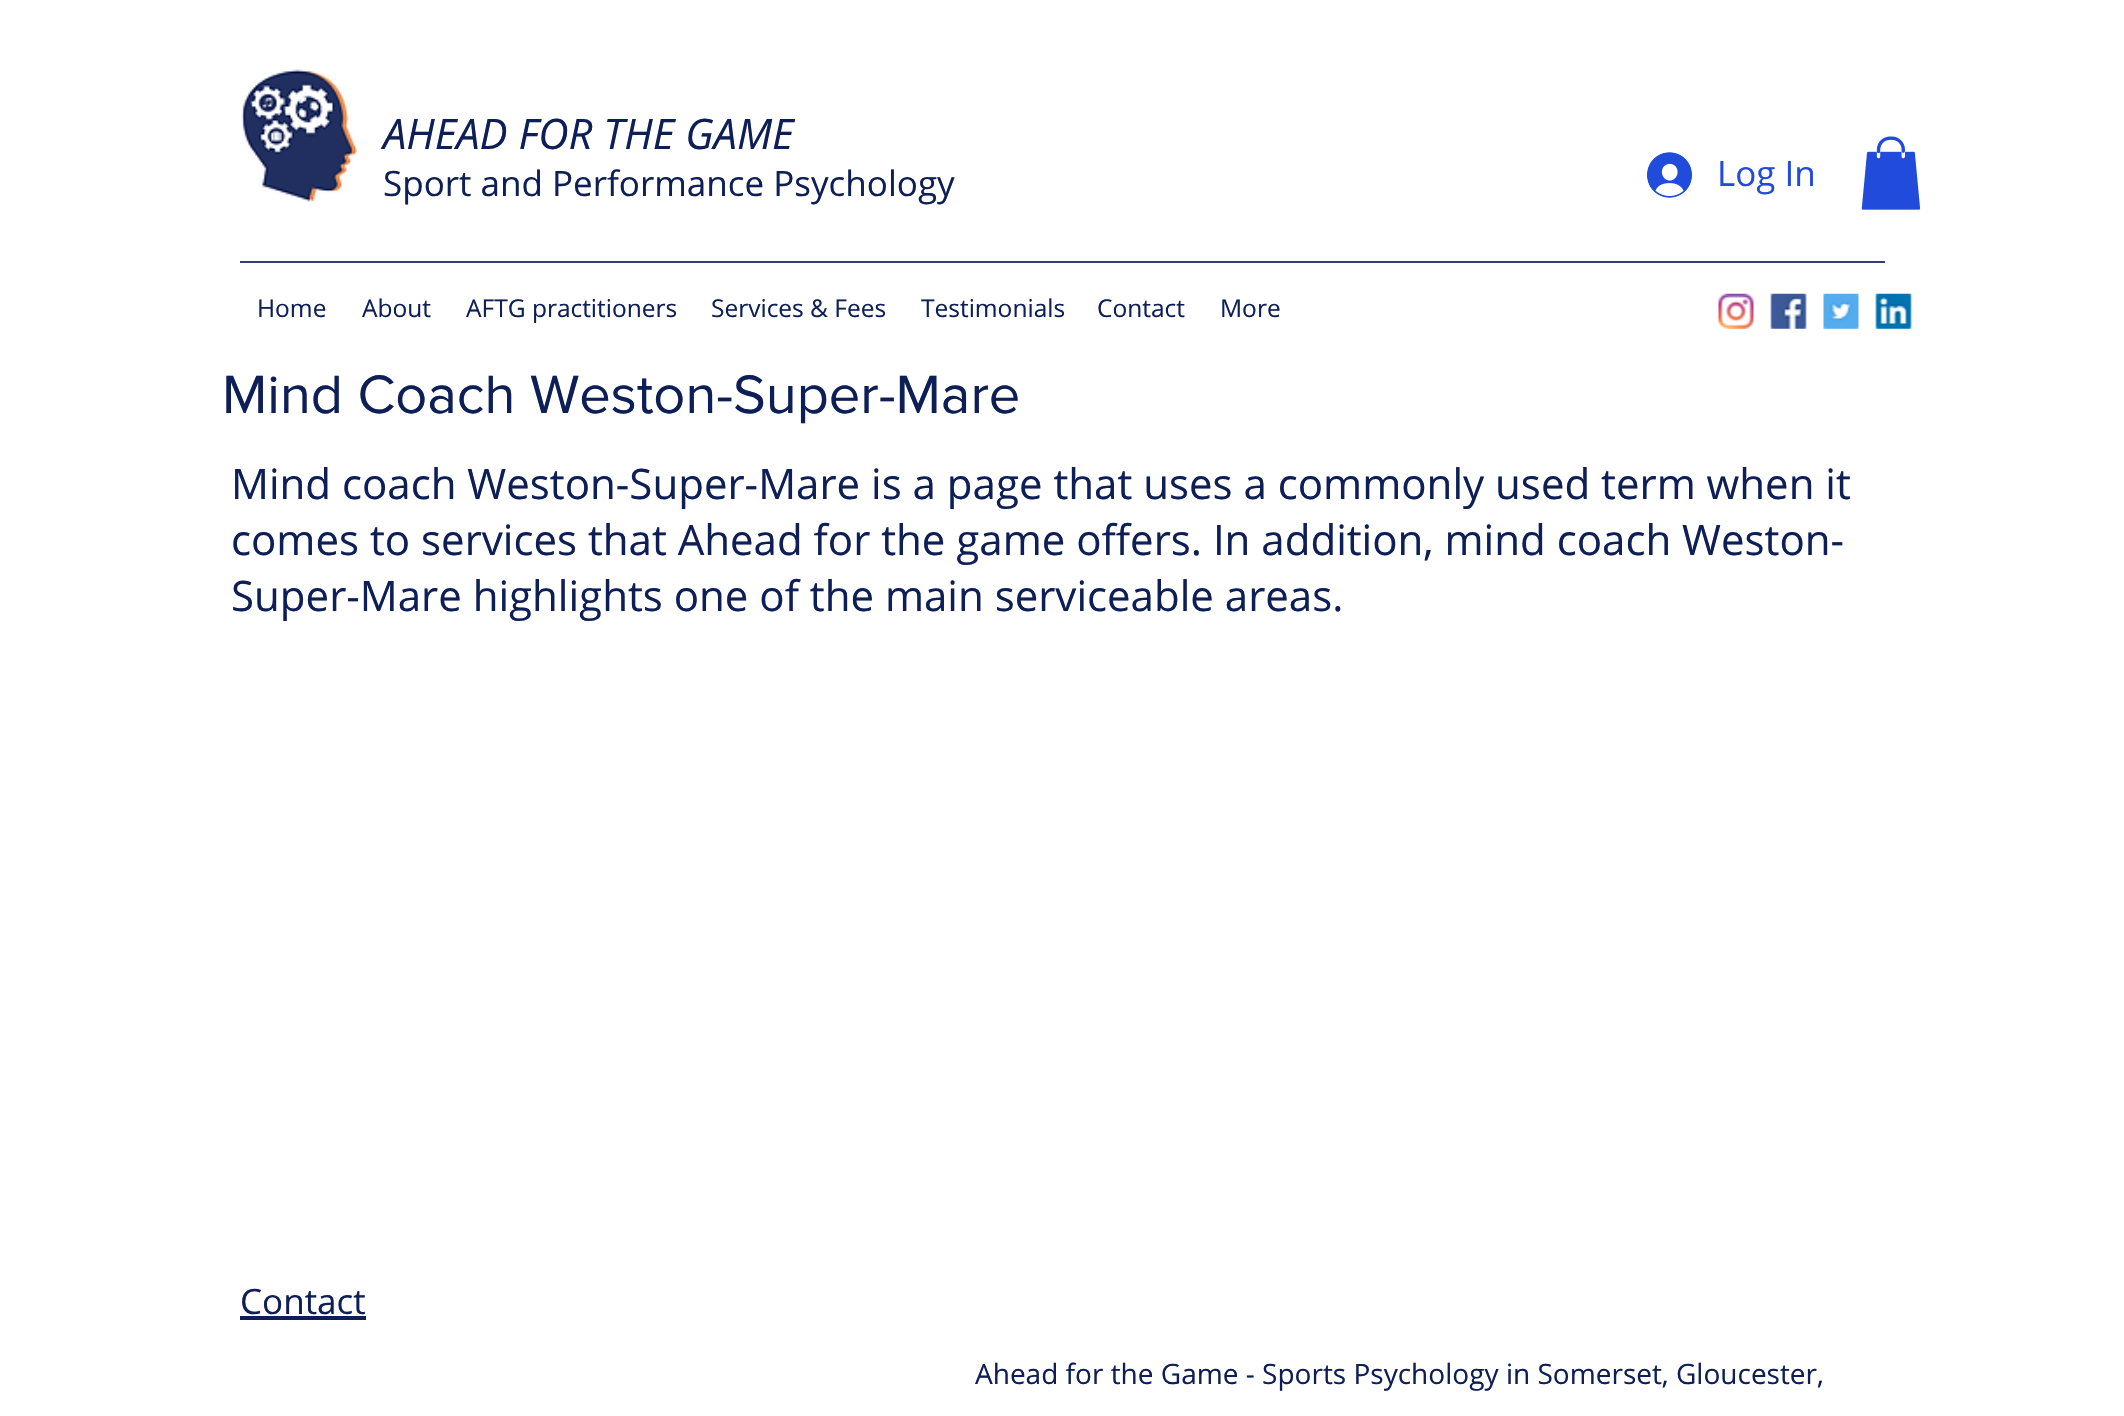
#include "include/core/SkBlurTypes.h"
#include "include/core/SkCanvas.h"
#include "include/core/SkData.h"
#include "include/core/SkFont.h"
#include "include/core/SkFontMgr.h"
#include "include/core/SkImage.h"
#include "include/core/SkMaskFilter.h"
#include "include/core/SkPaint.h"
#include "include/core/SkPathBuilder.h"
#include "include/core/SkTextBlob.h"
#include "include/effects/SkDashPathEffect.h"
#include "include/effects/SkGradientShader.h"
#include "include/utils/SkParsePath.h"

extern sk_sp<SkFontMgr> fontMgr;

static SkFont font(const char* family, int weight, float size, bool italic = false) {
    SkFontStyle style(weight, SkFontStyle::kNormal_Width,
        italic ? SkFontStyle::kItalic_Slant : SkFontStyle::kUpright_Slant);
    SkFont result(fontMgr->matchFamilyStyle(family, style), size);
    result.setSubpixel(true);
    return result;
}

static void drawLabel(SkCanvas* canvas, const char* s, float x, float y, const SkFont& font, SkColor color) {
    SkPaint ink(SkColor4f::FromColor(color));
    ink.setAntiAlias(true);
    canvas->drawString(s, x, y, font, ink);
}

static void fillRect(SkCanvas* canvas, float x, float y, float w, float h, SkColor color) {
    SkPaint ink(SkColor4f::FromColor(color));
    ink.setAntiAlias(true);
    canvas->drawRect(SkRect::MakeXYWH(x, y, w, h), ink);
}

static void drawPhoto(SkCanvas* canvas, const char* path, float x, float y, float w, float h) {
    auto image = SkImages::DeferredFromEncodedData(SkData::MakeFromFileName(path));
    canvas->drawImageRect(image, SkRect::MakeXYWH(x, y, w, h), SkSamplingOptions());
}

void draw(SkCanvas* canvas) {
    SkPaint paint;
    paint.setAntiAlias(true);
    canvas->clear(0xFFFFFFFF);
    drawPhoto(canvas, "assets/img1.png", 241, 69, 116, 133);
    SkFont font1 = font("Open Sans", 400, 42, true);
    drawLabel(canvas, "AHEAD FOR THE GAME", 383, 149, font1, 0xFF0E1F58);
    drawPhoto(canvas, "assets/img2.png", 1647, 152, 45, 46);
    SkFont font2 = font("Open Sans", 400, 35);
    drawLabel(canvas, "Log In", 1717, 186, font2, 0xFF214BDA);
    drawPhoto(canvas, "assets/img3.png", 1861, 136, 60, 74);
    drawLabel(canvas, "Sport and Performance Psychology", 383, 196, font2, 0xFF0E1F58);
    fillRect(canvas, 240, 261, 1645, 2, 0xFF324171);
    SkFont font3 = font("Open Sans", 400, 24.5f);
    drawLabel(canvas, "Home", 257, 317, font3, 0xFF0E1F58);
    drawLabel(canvas, "About", 362, 317, font3, 0xFF0E1F58);
    drawLabel(canvas, "AFTG practitioners", 466, 317, font3, 0xFF0E1F58);
    drawLabel(canvas, "Services & Fees", 711, 317, font3, 0xFF0E1F58);
    drawLabel(canvas, "Testimonials", 921, 317, font3, 0xFF0E1F58);
    drawLabel(canvas, "Contact", 1097, 317, font3, 0xFF0E1F58);
    drawLabel(canvas, "More", 1220, 317, font3, 0xFF0E1F58);
    drawPhoto(canvas, "assets/img4.png", 1718, 293, 36, 36);
    drawPhoto(canvas, "assets/img5.png", 1770, 293, 37, 36);
    drawPhoto(canvas, "assets/img6.png", 1823, 293, 36, 36);
    drawPhoto(canvas, "assets/img7.png", 1875, 293, 37, 36);
    SkFont font4 = font("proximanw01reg", 400, 56);
    drawLabel(canvas, "Mind Coach Weston-Super-Mare", 222, 413, font4, 0xFF0E1F58);
    SkFont font5 = font("Open Sans", 400, 42);
    drawLabel(canvas, "Mind coach Weston-Super-Mare is a page that uses a commonly used term when it", 231, 499, font5, 0xFF0E1F58);
    drawLabel(canvas, "comes to services that Ahead for the game offers. In addition, mind coach Weston-", 231, 555, font5, 0xFF0E1F58);
    drawLabel(canvas, "Super-Mare highlights one of the main serviceable areas.", 231, 611, font5, 0xFF0E1F58);
    drawLabel(canvas, "Contact", 240, 1314, font2, 0xFF0E1F58);
    fillRect(canvas, 240, 1316, 126, 4, 0xFF0E1F58);
    SkFont font6 = font("Open Sans", 400, 28);
    drawLabel(canvas, "Ahead for the Game - Sports Psychology in Somerset, Gloucester,", 975, 1384, font6, 0xFF0E1F58);
}
